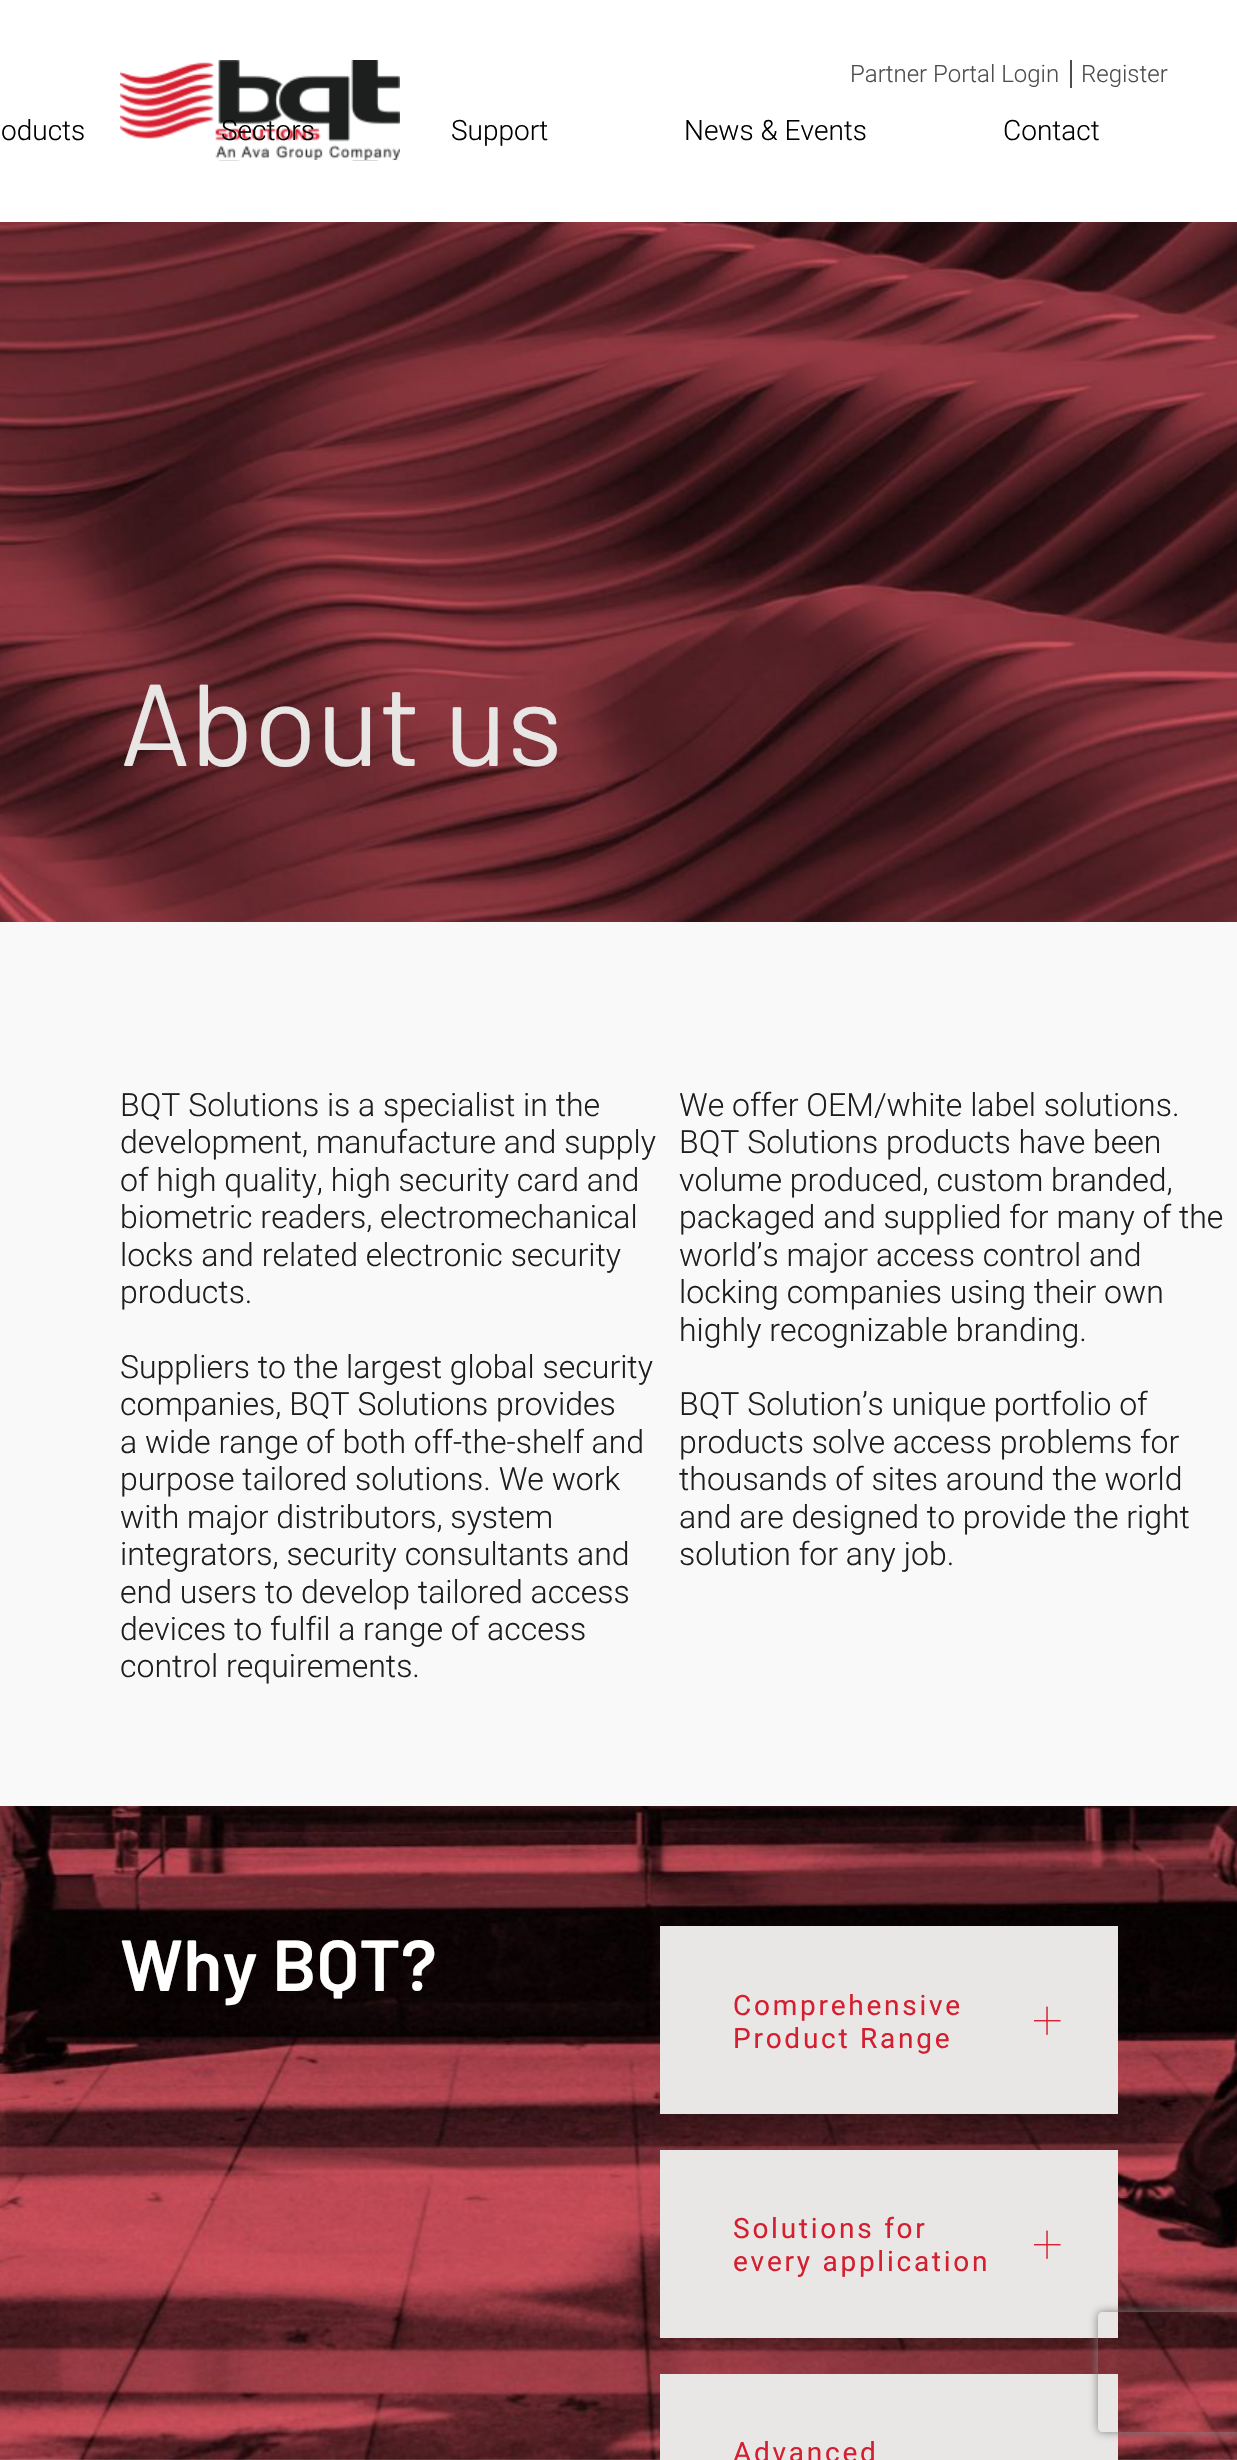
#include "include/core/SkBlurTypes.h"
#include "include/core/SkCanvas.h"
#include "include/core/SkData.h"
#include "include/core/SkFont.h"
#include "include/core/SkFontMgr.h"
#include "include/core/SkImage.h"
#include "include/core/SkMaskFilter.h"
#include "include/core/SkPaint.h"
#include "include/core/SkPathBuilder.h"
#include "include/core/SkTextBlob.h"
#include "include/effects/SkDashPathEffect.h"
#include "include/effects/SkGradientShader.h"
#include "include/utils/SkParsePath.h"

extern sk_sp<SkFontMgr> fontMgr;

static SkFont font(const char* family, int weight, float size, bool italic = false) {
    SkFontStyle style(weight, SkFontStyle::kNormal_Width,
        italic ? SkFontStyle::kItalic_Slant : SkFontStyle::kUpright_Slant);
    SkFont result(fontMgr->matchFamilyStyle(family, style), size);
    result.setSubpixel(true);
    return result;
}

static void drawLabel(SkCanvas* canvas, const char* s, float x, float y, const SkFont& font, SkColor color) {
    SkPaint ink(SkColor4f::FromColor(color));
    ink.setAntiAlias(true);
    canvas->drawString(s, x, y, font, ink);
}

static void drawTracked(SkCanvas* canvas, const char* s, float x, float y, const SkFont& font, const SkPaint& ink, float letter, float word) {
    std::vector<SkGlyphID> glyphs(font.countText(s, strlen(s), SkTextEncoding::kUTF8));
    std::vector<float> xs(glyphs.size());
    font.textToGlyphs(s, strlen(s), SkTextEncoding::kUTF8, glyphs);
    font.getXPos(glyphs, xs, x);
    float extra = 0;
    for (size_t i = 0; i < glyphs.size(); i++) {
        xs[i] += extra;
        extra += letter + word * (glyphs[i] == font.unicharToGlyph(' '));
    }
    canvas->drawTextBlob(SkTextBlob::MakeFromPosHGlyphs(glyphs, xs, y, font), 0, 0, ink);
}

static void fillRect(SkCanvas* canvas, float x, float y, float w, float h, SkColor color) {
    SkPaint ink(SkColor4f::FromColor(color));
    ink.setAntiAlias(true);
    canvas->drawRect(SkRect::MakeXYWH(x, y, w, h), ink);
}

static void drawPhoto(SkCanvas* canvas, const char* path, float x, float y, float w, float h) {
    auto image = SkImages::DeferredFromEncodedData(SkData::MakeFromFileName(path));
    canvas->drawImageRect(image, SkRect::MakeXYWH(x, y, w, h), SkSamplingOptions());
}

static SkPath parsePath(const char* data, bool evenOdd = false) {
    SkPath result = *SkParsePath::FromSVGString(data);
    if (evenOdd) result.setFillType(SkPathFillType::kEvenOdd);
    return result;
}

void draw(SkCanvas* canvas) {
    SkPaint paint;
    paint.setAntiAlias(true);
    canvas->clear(0xFFFFFFFF);
    drawPhoto(canvas, "assets/img1.png", 120, 60, 280, 101);
    fillRect(canvas, 1070, 60, 2, 28, 0xFF4D4D4D);
    SkFont font1 = font("Roboto", 300, 24);
    drawLabel(canvas, "Partner Portal Login", 850, 82, font1, 0xFF4D4D4D);
    drawLabel(canvas, "Register", 1081, 82, font1, 0xFF4D4D4D);
    SkFont font2 = font("Roboto", 300, 28);
    drawLabel(canvas, "oducts", 1, 140, font2, 0xFF000000);
    drawLabel(canvas, "Sectors", 221, 140, font2, 0xFF000000);
    drawLabel(canvas, "Support", 451, 140, font2, 0xFF000000);
    drawLabel(canvas, "News & Events", 684, 140, font2, 0xFF000000);
    drawLabel(canvas, "Contact", 1003, 140, font2, 0xFF000000);
    drawPhoto(canvas, "assets/img2.png", 0, 222, 1237, 700);
    SkFont font3 = font("Barlow", 400, 116);
    drawLabel(canvas, "About us", 120, 766, font3, 0xFFE7E6E5);
    fillRect(canvas, 0, 922, 1237, 884, 0xFFF9F9F9);
    SkFont font4 = font("Roboto", 300, 32);
    drawLabel(canvas, "BQT Solutions is a specialist in the", 120, 1116, font4, 0xFF1E1E1E);
    drawLabel(canvas, "development, manufacture and supply", 120, 1153, font4, 0xFF1E1E1E);
    drawLabel(canvas, "of high quality, high security card and", 120, 1191, font4, 0xFF1E1E1E);
    drawLabel(canvas, "biometric readers, electromechanical", 120, 1228, font4, 0xFF1E1E1E);
    drawLabel(canvas, "locks and related electronic security", 120, 1266, font4, 0xFF1E1E1E);
    drawLabel(canvas, "products.", 120, 1303, font4, 0xFF1E1E1E);
    drawLabel(canvas, "Suppliers to the largest global security", 120, 1378, font4, 0xFF1E1E1E);
    drawLabel(canvas, "companies, BQT Solutions provides", 120, 1415, font4, 0xFF1E1E1E);
    drawLabel(canvas, "a wide range of both off-the-shelf and", 120, 1453, font4, 0xFF1E1E1E);
    drawLabel(canvas, "purpose tailored solutions. We work", 120, 1490, font4, 0xFF1E1E1E);
    drawLabel(canvas, "with major distributors, system", 120, 1528, font4, 0xFF1E1E1E);
    drawLabel(canvas, "integrators, security consultants and", 120, 1565, font4, 0xFF1E1E1E);
    drawLabel(canvas, "end users to develop tailored access", 120, 1603, font4, 0xFF1E1E1E);
    drawLabel(canvas, "devices to fulfil a range of access", 120, 1640, font4, 0xFF1E1E1E);
    drawLabel(canvas, "control requirements.", 120, 1677, font4, 0xFF1E1E1E);
    drawLabel(canvas, "We offer OEM/white label solutions.", 679, 1116, font4, 0xFF1E1E1E);
    drawLabel(canvas, "BQT Solutions products have been", 679, 1153, font4, 0xFF1E1E1E);
    drawLabel(canvas, "volume produced, custom branded,", 679, 1191, font4, 0xFF1E1E1E);
    drawLabel(canvas, "packaged and supplied for many of the", 679, 1228, font4, 0xFF1E1E1E);
    drawLabel(canvas, "world’s major access control and", 679, 1266, font4, 0xFF1E1E1E);
    drawLabel(canvas, "locking companies using their own", 679, 1303, font4, 0xFF1E1E1E);
    drawLabel(canvas, "highly recognizable branding.", 679, 1341, font4, 0xFF1E1E1E);
    drawLabel(canvas, "BQT Solution’s unique portfolio of", 679, 1415, font4, 0xFF1E1E1E);
    drawLabel(canvas, "products solve access problems for", 679, 1453, font4, 0xFF1E1E1E);
    drawLabel(canvas, "thousands of sites around the world", 679, 1490, font4, 0xFF1E1E1E);
    drawLabel(canvas, "and are designed to provide the right", 679, 1528, font4, 0xFF1E1E1E);
    drawLabel(canvas, "solution for any job.", 679, 1565, font4, 0xFF1E1E1E);
    drawPhoto(canvas, "assets/img3.png", 0, 1806, 1237, 654);
    SkFont font5 = font("Barlow", 600, 72);
    drawLabel(canvas, "Why BQT?", 120, 1991, font5, 0xFFFFFFFF);
    fillRect(canvas, 660, 1926, 458, 188, 0xFFE8E7E6);
    SkFont font6 = font("Roboto", 400, 28);
    paint.setColor(0xFFD41F30);
    drawTracked(canvas, "Comprehensive", 733, 2015, font6, paint, 2.75f, 0);
    drawTracked(canvas, "Product Range", 733, 2048, font6, paint, 2.75f, 0);
    drawPhoto(canvas, "assets/img4.png", 1034, 2006, 27, 29);
    fillRect(canvas, 660, 2150, 458, 188, 0xFFE8E7E6);
    drawTracked(canvas, "Solutions for", 733, 2238, font6, paint, 2.75f, 0);
    drawTracked(canvas, "every application", 733, 2271, font6, paint, 2.75f, 0);
    drawPhoto(canvas, "assets/img4.png", 1034, 2230, 27, 29);
    fillRect(canvas, 660, 2374, 458, 86, 0xFFE8E7E6);
    drawTracked(canvas, "Advanced", 733, 2462, font6, paint, 2.75f, 0);
    canvas->save();
    canvas->clipPath(parsePath("M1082 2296H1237V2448H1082ZM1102 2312H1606C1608 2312 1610 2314 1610 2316V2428C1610 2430 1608 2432 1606 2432H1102C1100 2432 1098 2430 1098 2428V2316C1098 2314 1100 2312 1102 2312Z", true), true);
    paint.setColor(0xFF808080);
    paint.setMaskFilter(SkMaskFilter::MakeBlur(kNormal_SkBlurStyle, 5));
    canvas->drawRoundRect(SkRect::MakeXYWH(1098, 2312, 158, 120), 4, 4, paint);
    paint.setMaskFilter(nullptr);
    canvas->restore();
}
